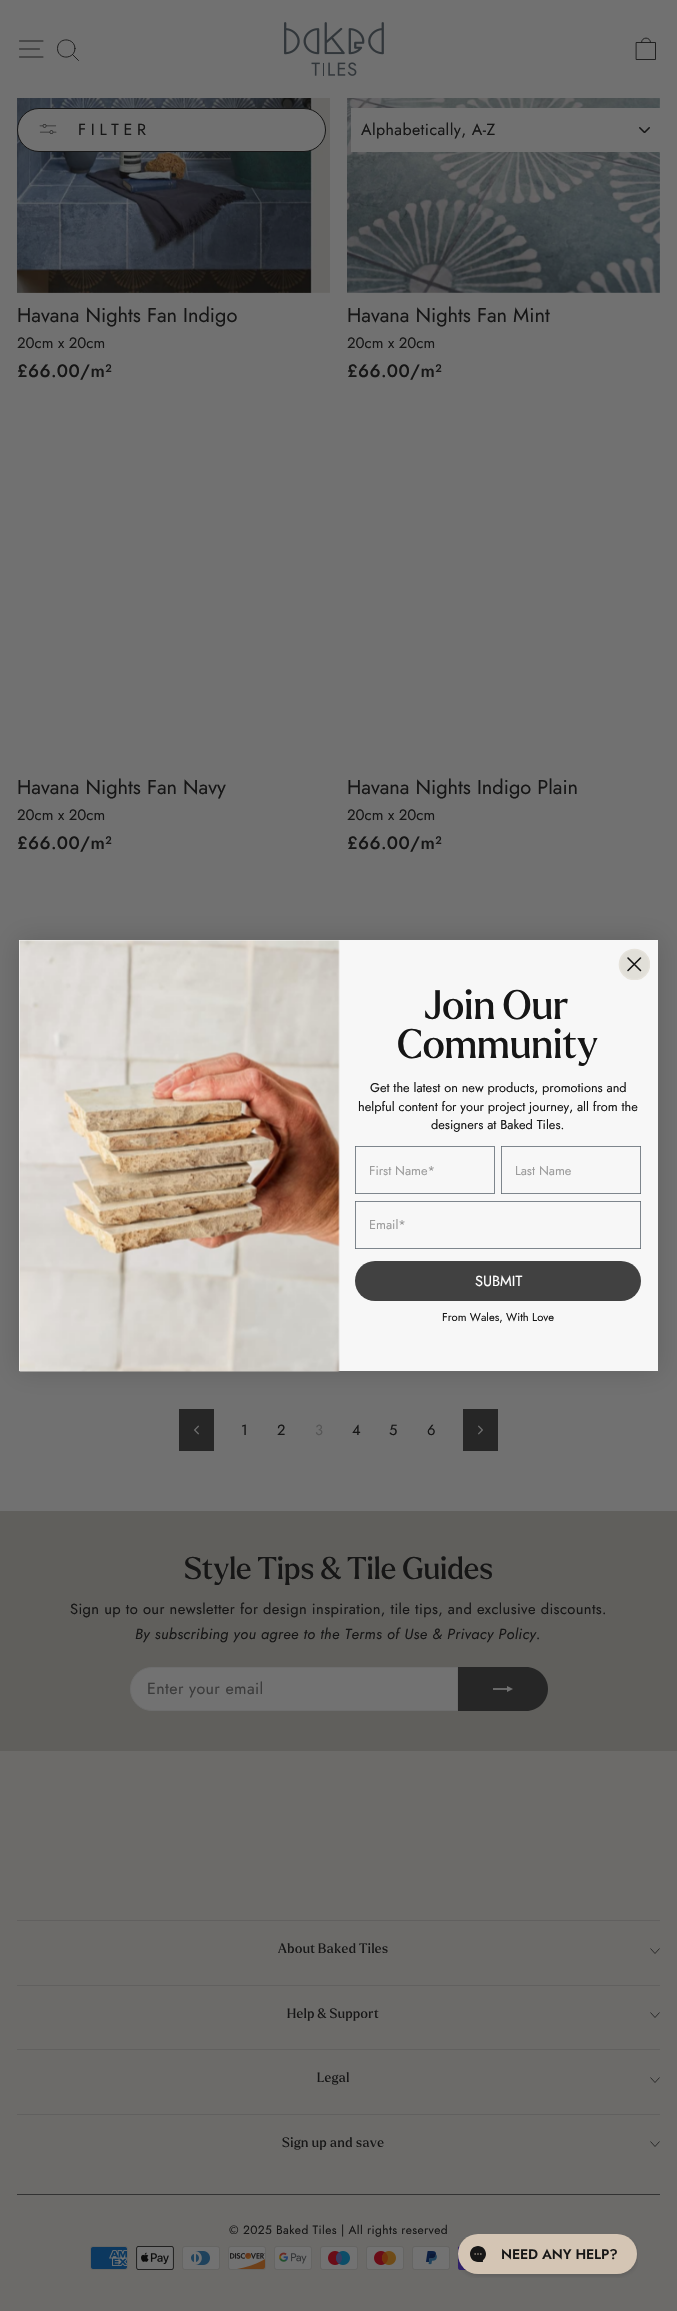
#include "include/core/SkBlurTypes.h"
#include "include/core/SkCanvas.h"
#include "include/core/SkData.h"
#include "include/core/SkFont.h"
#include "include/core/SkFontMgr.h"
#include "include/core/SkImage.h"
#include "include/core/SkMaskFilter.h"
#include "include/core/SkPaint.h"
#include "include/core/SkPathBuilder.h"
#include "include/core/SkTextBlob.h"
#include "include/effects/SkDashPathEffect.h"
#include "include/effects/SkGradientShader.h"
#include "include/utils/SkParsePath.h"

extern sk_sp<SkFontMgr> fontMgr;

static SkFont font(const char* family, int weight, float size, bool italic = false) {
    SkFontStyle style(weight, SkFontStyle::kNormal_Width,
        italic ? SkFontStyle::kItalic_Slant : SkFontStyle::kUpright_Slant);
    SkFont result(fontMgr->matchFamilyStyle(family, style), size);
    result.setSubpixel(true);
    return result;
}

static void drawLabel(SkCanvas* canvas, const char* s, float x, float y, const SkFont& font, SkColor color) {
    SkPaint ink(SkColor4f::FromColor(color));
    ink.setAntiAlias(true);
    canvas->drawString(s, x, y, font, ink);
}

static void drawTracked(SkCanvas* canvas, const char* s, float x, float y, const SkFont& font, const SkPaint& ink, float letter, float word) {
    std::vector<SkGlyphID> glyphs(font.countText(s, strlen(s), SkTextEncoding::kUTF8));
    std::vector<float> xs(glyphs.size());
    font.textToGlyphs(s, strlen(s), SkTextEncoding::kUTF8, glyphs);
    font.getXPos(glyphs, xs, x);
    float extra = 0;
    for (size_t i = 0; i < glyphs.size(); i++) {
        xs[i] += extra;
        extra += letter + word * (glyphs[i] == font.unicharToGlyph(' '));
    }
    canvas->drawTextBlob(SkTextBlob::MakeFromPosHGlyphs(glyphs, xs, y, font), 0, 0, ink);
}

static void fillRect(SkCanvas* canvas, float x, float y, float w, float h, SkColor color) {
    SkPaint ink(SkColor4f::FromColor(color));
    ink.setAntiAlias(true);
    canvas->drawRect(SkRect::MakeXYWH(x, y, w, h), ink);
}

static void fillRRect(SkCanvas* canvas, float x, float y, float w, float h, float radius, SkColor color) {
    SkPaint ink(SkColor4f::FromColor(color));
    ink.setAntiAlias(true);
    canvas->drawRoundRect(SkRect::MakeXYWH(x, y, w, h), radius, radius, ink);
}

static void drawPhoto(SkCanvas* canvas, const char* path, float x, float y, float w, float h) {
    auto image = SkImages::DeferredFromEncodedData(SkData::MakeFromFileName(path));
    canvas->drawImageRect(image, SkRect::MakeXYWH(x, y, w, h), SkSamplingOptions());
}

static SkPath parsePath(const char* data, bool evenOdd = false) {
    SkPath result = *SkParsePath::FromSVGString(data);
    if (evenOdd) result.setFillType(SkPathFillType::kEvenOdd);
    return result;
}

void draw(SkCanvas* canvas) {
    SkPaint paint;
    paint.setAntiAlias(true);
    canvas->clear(0xFF717171);
    paint.setStroke(true);
    paint.setStrokeWidth(0.9f);
    paint.setStrokeCap(SkPaint::kRound_Cap);
    paint.setStrokeJoin(SkPaint::kRound_Join);
    paint.setColor(0xFF161616);
    canvas->drawPath(parsePath("M19.5 41H43M19.5 49H39.5M19.5 57H43M75 48.5C75 60 57.5 60 57.5 48.5C57.5 37 75 37 75 48.5ZM78.5 60.5L72.5 54.5"), paint);
    drawPhoto(canvas, "assets/img1.png", 284, 22, 100, 54);
    canvas->drawPath(parsePath("M636.5 42.5H655.5V59.5H636.5ZM641.5 42.5C641.5 36.5 650.5 36.5 650.5 42.5"), paint);
    drawPhoto(canvas, "assets/img4.png", 17, 98, 313, 195);
    paint.setStroke(false);
    paint.setColor(0xFF717171);
    canvas->drawRoundRect(SkRect::MakeXYWH(17.5f, 108.5f, 308, 43), 21.5f, 21.5f, paint);
    paint.setStroke(true);
    paint.setStrokeWidth(1);
    paint.setStrokeCap(SkPaint::kButt_Cap);
    paint.setStrokeJoin(SkPaint::kMiter_Join);
    paint.setColor(0xFF161616);
    canvas->drawRoundRect(SkRect::MakeXYWH(17.5f, 108.5f, 308, 43), 21.5f, 21.5f, paint);
    drawPhoto(canvas, "assets/img2.png", 39, 124, 18, 10);
    SkFont font1 = font("Jost", 400, 16);
    paint.setStroke(false);
    drawTracked(canvas, "FILTER", 78, 135, font1, paint, 4.75f, 0);
    drawPhoto(canvas, "assets/img5.png", 347, 98, 313, 195);
    fillRect(canvas, 351, 108, 309, 44, 0xFF717171);
    drawPhoto(canvas, "assets/img3.png", 639, 127, 11, 6);
    drawTracked(canvas, "Alphabetically, A-Z", 361, 135, font1, paint, 0.4f, 0);
    SkFont font2 = font("Jost", 400, 20);
    drawLabel(canvas, "Havana Nights Fan Indigo", 17, 322, font2, 0xFF161616);
    SkFont font3 = font("Jost", 400, 15);
    drawLabel(canvas, "20cm x 20cm", 17, 348, font3, 0xFF161616);
    SkFont font4 = font("Jost", 500, 18);
    drawTracked(canvas, "£66.00/m²", 17, 377, font4, paint, 0.37f, 0);
    drawLabel(canvas, "Havana Nights Fan Mint", 347, 322, font2, 0xFF161616);
    drawLabel(canvas, "20cm x 20cm", 347, 348, font3, 0xFF161616);
    drawTracked(canvas, "£66.00/m²", 347, 377, font4, paint, 0.37f, 0);
    drawLabel(canvas, "Havana Nights Fan Navy", 17, 794, font2, 0xFF161616);
    drawLabel(canvas, "20cm x 20cm", 17, 820, font3, 0xFF161616);
    drawTracked(canvas, "£66.00/m²", 17, 849, font4, paint, 0.37f, 0);
    drawLabel(canvas, "Havana Nights Indigo Plain", 347, 794, font2, 0xFF161616);
    drawLabel(canvas, "20cm x 20cm", 347, 820, font3, 0xFF161616);
    drawTracked(canvas, "£66.00/m²", 347, 849, font4, paint, 0.37f, 0);
    fillRect(canvas, 179, 1409, 35, 42, 0xFF262626);
    drawPhoto(canvas, "assets/img6.png", 194, 1425, 5, 10);
    SkFont font5 = font("Jost", 400, 14.7f);
    drawTracked(canvas, "1", 241, 1435, font5, paint, 0.37f, 0);
    drawTracked(canvas, "2", 277, 1435, font5, paint, 0.37f, 0);
    paint.setColor(0xFF565656);
    drawTracked(canvas, "3", 315, 1435, font5, paint, 0.37f, 0);
    paint.setColor(0xFF161616);
    drawTracked(canvas, "4", 352, 1435, font5, paint, 0.37f, 0);
    drawTracked(canvas, "5", 389, 1435, font5, paint, 0.37f, 0);
    drawTracked(canvas, "6", 427, 1435, font5, paint, 0.37f, 0);
    fillRect(canvas, 463, 1409, 35, 42, 0xFF262626);
    drawPhoto(canvas, "assets/img7.png", 478, 1425, 5, 10);
    fillRect(canvas, 0, 1511, 677, 240, 0xFF605F5C);
    SkFont font6 = font("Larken", 400, 30.6f);
    drawTracked(canvas, "Style Tips & Tile Guides", 184, 1579, font6, paint, 0, -1);
    drawTracked(canvas, "Sign up to our newsletter for design inspiration, tile tips, and exclusive discounts.", 70, 1614, font5, paint, 0.37f, 0);
    SkFont font7 = font("Jost", 400, 14.7f, true);
    drawTracked(canvas, "By subscribing you agree to the Terms of Use & Privacy Policy.", 135, 1639, font7, paint, 0.37f, 0);
    paint.setColor(0xFF727272);
    canvas->drawPath(parsePath("M152 1667.5H457.5V1710.5H152C140 1710.5 130.5 1701 130.5 1689C130.5 1677 140 1667.5 152 1667.5Z"), paint);
    paint.setStroke(true);
    paint.setColor(0xFF6D6D6D);
    canvas->drawPath(parsePath("M152 1667.5H457.5V1710.5H152C140 1710.5 130.5 1701 130.5 1689C130.5 1677 140 1667.5 152 1667.5Z"), paint);
    paint.setStroke(false);
    paint.setColor(0xFF3B3B3B);
    drawTracked(canvas, "Enter your email", 147, 1694, font1, paint, 0.4f, 0);
    paint.setColor(0xFF262626);
    canvas->drawPath(parsePath("M458 1667H526C538 1667 548 1677 548 1689C548 1701 538 1711 526 1711H458Z"), paint);
    drawPhoto(canvas, "assets/img8.png", 493, 1686, 20, 6);
    fillRect(canvas, 0, 1751, 677, 560, 0xFF6C6B69);
    fillRect(canvas, 17, 1920, 643, 1, 0xFF61605F);
    SkFont font8 = font("Larken", 400, 13.25f);
    paint.setColor(0xFF161616);
    drawTracked(canvas, "About Baked Tiles", 278, 1953, font8, paint, 0.5f, -1);
    paint.setStroke(true);
    paint.setStrokeWidth(0.7f);
    paint.setColor(0xFF0C0C0C);
    canvas->drawPath(parsePath("M650.5 1948.5L655 1953.5L659.5 1948.5"), paint);
    fillRect(canvas, 17, 1985, 643, 1, 0xFF61605F);
    paint.setStroke(false);
    paint.setColor(0xFF161616);
    drawTracked(canvas, "Help & Support", 287, 2018, font8, paint, 0.5f, -1);
    paint.setStroke(true);
    paint.setColor(0xFF0C0C0C);
    canvas->drawPath(parsePath("M650.5 2012.5L655 2017.5L659.5 2012.5"), paint);
    fillRect(canvas, 17, 2049, 643, 1, 0xFF61605F);
    paint.setStroke(false);
    paint.setColor(0xFF161616);
    drawTracked(canvas, "Legal", 317, 2082, font8, paint, 0.5f, 0);
    paint.setStroke(true);
    paint.setColor(0xFF0C0C0C);
    canvas->drawPath(parsePath("M650.5 2077.5L655 2082.5L659.5 2077.5"), paint);
    fillRect(canvas, 17, 2114, 643, 1, 0xFF61605F);
    paint.setStroke(false);
    paint.setColor(0xFF161616);
    drawTracked(canvas, "Sign up and save", 282, 2147, font8, paint, 0.5f, -0.5f);
    paint.setStroke(true);
    paint.setColor(0xFF0C0C0C);
    canvas->drawPath(parsePath("M650.5 2141.5L655 2146.5L659.5 2141.5"), paint);
    fillRect(canvas, 17, 2194, 643, 1, 0xFF323232);
    SkFont font9 = font("Jost", 400, 12);
    paint.setStroke(false);
    paint.setColor(0xFF161616);
    drawTracked(canvas, "© 2025 Baked Tiles | All rights reserved", 229, 2234, font9, paint, 0.37f, 0);
    drawPhoto(canvas, "assets/img9.png", 90, 2246, 38, 24);
    drawPhoto(canvas, "assets/img10.png", 136, 2246, 38, 24);
    drawPhoto(canvas, "assets/img11.png", 182, 2246, 38, 24);
    drawPhoto(canvas, "assets/img12.png", 228, 2246, 38, 24);
    drawPhoto(canvas, "assets/img13.png", 274, 2246, 38, 24);
    drawPhoto(canvas, "assets/img14.png", 320, 2246, 38, 24);
    drawPhoto(canvas, "assets/img15.png", 366, 2246, 38, 24);
    drawPhoto(canvas, "assets/img16.png", 412, 2246, 38, 24);
    drawPhoto(canvas, "assets/img17.png", 458, 2246, 8, 24);
    paint.setColor(0x26000000);
    paint.setMaskFilter(SkMaskFilter::MakeBlur(kNormal_SkBlurStyle, 12));
    canvas->drawRect(SkRect::MakeXYWH(19, 940, 639, 431), paint);
    paint.setMaskFilter(nullptr);
    fillRect(canvas, 19, 940, 639, 431, 0xFFF7F7F7);
    paint.setColor(0xFFE1DFD8);
    canvas->drawCircle(634.5f, 964.5f, 15, paint);
    canvas->save();
    canvas->clipRect(SkRect::MakeXYWH(618, 948, 32, 32));
    paint.setStroke(true);
    paint.setStrokeWidth(1.6f);
    paint.setColor(0xFFE6E3DC);
    canvas->drawCircle(634.5f, 964.5f, 15, paint);
    canvas->restore();
    paint.setStrokeCap(SkPaint::kRound_Cap);
    paint.setStrokeJoin(SkPaint::kRound_Join);
    paint.setColor(0xFF141414);
    canvas->drawPath(parsePath("M628 958L640.5 970.5M628 970.5L640.5 958Z"), paint);
    drawPhoto(canvas, "assets/img18.png", 19, 940, 321, 432);
    SkFont font10 = font("Larken", 400, 40);
    paint.setStroke(false);
    paint.setColor(0xFF161616);
    drawTracked(canvas, "Join Our", 424, 1019, font10, paint, 0, -2);
    drawLabel(canvas, "Community", 397, 1058, font10, 0xFF161616);
    SkFont font11 = font("Jost", 400, 12.75f);
    drawLabel(canvas, "Get the latest on new products, promotions and", 370, 1092, font11, 0xFF161616);
    drawLabel(canvas, "helpful content for your project journey, all from the", 358, 1111, font11, 0xFF161616);
    drawLabel(canvas, "designers at Baked Tiles.", 431, 1129, font11, 0xFF161616);
    paint.setStroke(true);
    paint.setStrokeWidth(0.8f);
    paint.setStrokeCap(SkPaint::kButt_Cap);
    paint.setStrokeJoin(SkPaint::kMiter_Join);
    paint.setColor(0xFF606A72);
    canvas->drawRect(SkRect::MakeXYWH(355.4f, 1146.4f, 139.2f, 47.2f), paint);
    drawLabel(canvas, "First Name*", 369, 1175, font11, 0xFF9C9C9C);
    canvas->drawRect(SkRect::MakeXYWH(501.4f, 1146.4f, 139.2f, 47.2f), paint);
    drawLabel(canvas, "Last Name", 515, 1175, font11, 0xFF9C9C9C);
    canvas->drawRect(SkRect::MakeXYWH(355.4f, 1201.4f, 285.2f, 47.2f), paint);
    drawLabel(canvas, "Email*", 369, 1229, font11, 0xFF9C9C9C);
    fillRRect(canvas, 355, 1261, 286, 40, 20, 0xFF414141);
    SkFont font12 = font("Jost", 400, 14.5f);
    drawLabel(canvas, "SUBMIT", 475, 1286, font12, 0xFFFFFFFF);
    SkFont font13 = font("Jost", 400, 11.25f);
    drawLabel(canvas, "From Wales, With Love", 442, 1321, font13, 0xFF161616);
    drawPhoto(canvas, "assets/img19.png", 457, 2234, 181, 44);
}
